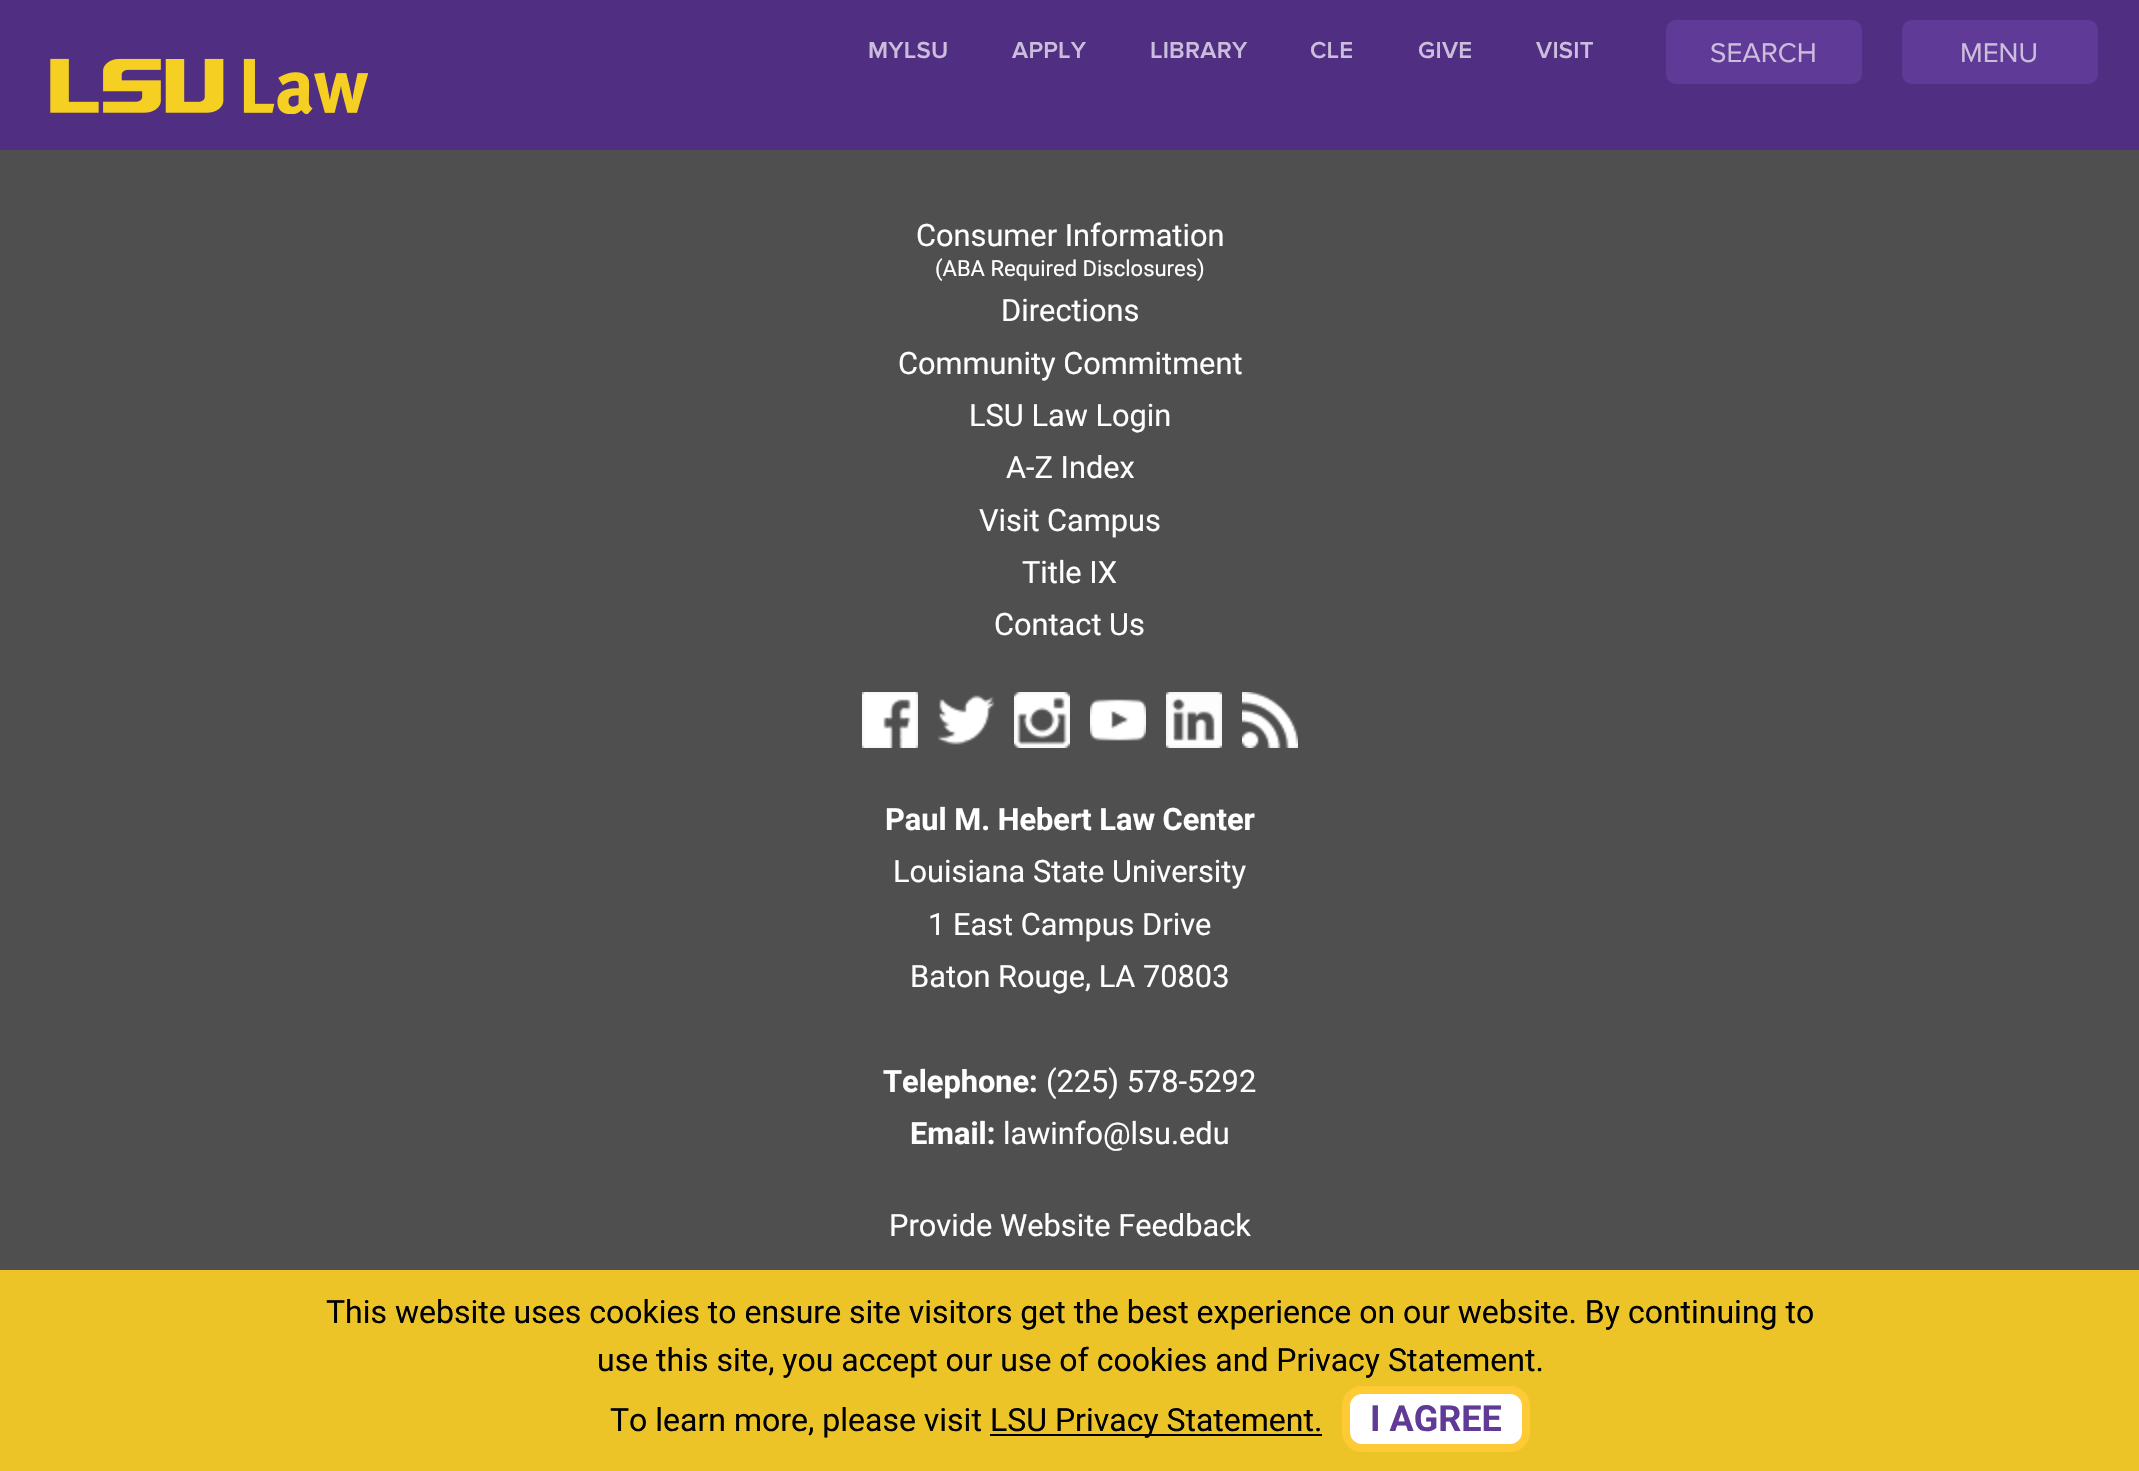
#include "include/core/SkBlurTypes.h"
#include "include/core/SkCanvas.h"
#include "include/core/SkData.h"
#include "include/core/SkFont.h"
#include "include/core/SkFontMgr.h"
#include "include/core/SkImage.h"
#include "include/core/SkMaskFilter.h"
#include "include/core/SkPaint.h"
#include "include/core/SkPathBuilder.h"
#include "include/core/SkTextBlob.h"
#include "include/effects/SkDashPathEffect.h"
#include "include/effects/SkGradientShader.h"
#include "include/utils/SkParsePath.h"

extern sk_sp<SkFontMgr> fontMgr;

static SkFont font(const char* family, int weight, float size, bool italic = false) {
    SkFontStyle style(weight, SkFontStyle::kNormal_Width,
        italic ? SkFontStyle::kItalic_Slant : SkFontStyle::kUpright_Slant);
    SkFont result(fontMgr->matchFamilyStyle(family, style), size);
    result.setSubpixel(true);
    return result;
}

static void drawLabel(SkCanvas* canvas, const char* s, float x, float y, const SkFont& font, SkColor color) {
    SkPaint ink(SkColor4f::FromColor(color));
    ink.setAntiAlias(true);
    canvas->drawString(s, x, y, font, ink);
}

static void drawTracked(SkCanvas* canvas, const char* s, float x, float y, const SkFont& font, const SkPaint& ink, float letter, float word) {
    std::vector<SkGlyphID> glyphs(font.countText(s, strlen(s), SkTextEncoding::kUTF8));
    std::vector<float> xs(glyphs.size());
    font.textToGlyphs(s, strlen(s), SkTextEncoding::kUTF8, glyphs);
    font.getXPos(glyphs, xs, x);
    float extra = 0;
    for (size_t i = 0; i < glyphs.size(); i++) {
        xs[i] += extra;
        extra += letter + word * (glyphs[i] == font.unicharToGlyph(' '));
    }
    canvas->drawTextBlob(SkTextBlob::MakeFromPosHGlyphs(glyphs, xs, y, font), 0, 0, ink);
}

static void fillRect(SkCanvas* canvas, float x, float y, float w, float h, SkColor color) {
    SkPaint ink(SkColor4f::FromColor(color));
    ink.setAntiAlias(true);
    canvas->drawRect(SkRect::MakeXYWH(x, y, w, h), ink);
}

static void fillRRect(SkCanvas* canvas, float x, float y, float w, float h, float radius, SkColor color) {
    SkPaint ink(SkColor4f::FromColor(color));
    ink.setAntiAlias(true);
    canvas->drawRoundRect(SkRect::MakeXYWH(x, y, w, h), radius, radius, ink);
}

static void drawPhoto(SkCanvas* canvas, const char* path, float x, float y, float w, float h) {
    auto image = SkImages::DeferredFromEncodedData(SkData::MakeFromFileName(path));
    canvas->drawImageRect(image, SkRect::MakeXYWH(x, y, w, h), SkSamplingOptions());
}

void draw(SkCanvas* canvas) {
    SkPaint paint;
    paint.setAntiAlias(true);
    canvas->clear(0xFF4F4F4F);
    fillRect(canvas, 0, 0, 2139, 150, 0xFF502E81);
    SkFont font1 = font("Proxima Nova", 600, 24);
    paint.setColor(0xFFCCBDDC);
    drawTracked(canvas, "MYLSU", 868, 58, font1, paint, 0.25f, 0);
    drawTracked(canvas, "APPLY", 1012, 58, font1, paint, 0.25f, 0);
    drawTracked(canvas, "LIBRARY", 1150, 58, font1, paint, 0.25f, 0);
    drawTracked(canvas, "CLE", 1310, 58, font1, paint, 0.25f, 0);
    drawTracked(canvas, "GIVE", 1418, 58, font1, paint, 0.25f, 0);
    drawTracked(canvas, "VISIT", 1536, 58, font1, paint, 0.25f, 0);
    fillRRect(canvas, 1666, 20, 196, 64, 10, 0xFF5F3B97);
    SkFont font2 = font("Proxima Nova", 400, 28);
    drawLabel(canvas, "SEARCH", 1710, 62, font2, 0xFFCCBDDC);
    fillRRect(canvas, 1902, 20, 196, 64, 10, 0xFF5F3B97);
    drawLabel(canvas, "MENU", 1960, 62, font2, 0xFFCCBDDC);
    drawPhoto(canvas, "assets/img1.png", 50, 58, 318, 56);
    SkFont font3 = font("Roboto", 400, 30.75f);
    drawLabel(canvas, "Consumer Information", 916, 246, font3, 0xFFFFFFFF);
    SkFont font4 = font("Roboto", 400, 22);
    drawLabel(canvas, "(ABA Required Disclosures)", 935, 276, font4, 0xFFFFFFFF);
    drawLabel(canvas, "Directions", 1001, 321, font3, 0xFFFFFFFF);
    drawLabel(canvas, "Community Commitment", 898, 374, font3, 0xFFFFFFFF);
    drawLabel(canvas, "LSU Law Login", 969, 426, font3, 0xFFFFFFFF);
    drawLabel(canvas, "A-Z Index", 1006, 478, font3, 0xFFFFFFFF);
    drawLabel(canvas, "Visit Campus", 979, 531, font3, 0xFFFFFFFF);
    drawLabel(canvas, "Title IX", 1022, 583, font3, 0xFFFFFFFF);
    drawLabel(canvas, "Contact Us", 994, 635, font3, 0xFFFFFFFF);
    drawPhoto(canvas, "assets/img2.png", 862, 692, 56, 56);
    drawPhoto(canvas, "assets/img3.png", 938, 695, 56, 50);
    drawPhoto(canvas, "assets/img4.png", 1014, 692, 56, 56);
    drawPhoto(canvas, "assets/img5.png", 1090, 699, 56, 42);
    drawPhoto(canvas, "assets/img6.png", 1166, 692, 56, 56);
    drawPhoto(canvas, "assets/img7.png", 1242, 692, 56, 56);
    SkFont font5 = font("Roboto", 700, 30.75f);
    drawLabel(canvas, "Paul M. Hebert Law Center", 885, 830, font5, 0xFFFFFFFF);
    drawLabel(canvas, "Louisiana State University", 893, 882, font3, 0xFFFFFFFF);
    drawLabel(canvas, "1 East Campus Drive", 928, 935, font3, 0xFFFFFFFF);
    drawLabel(canvas, "Baton Rouge, LA 70803", 910, 987, font3, 0xFFFFFFFF);
    drawLabel(canvas, "Telephone:", 883, 1092, font5, 0xFFFFFFFF);
    drawLabel(canvas, "(225) 578-5292", 1046, 1092, font3, 0xFFFFFFFF);
    drawLabel(canvas, "Email:", 910, 1144, font5, 0xFFFFFFFF);
    drawLabel(canvas, "lawinfo@lsu.edu", 1003, 1144, font3, 0xFFFFFFFF);
    drawLabel(canvas, "Provide Website Feedback", 889, 1236, font3, 0xFFFFFFFF);
    fillRect(canvas, 0, 1270, 2139, 201, 0xE6FDD023);
    SkFont font6 = font("Roboto", 400, 32);
    drawLabel(canvas, "This website uses cookies to ensure site visitors get the best experience on our website. By continuing to", 326, 1323, font6, 0xFF000000);
    drawLabel(canvas, "use this site, you accept our use of cookies and Privacy Statement.", 597, 1371, font6, 0xFF000000);
    drawLabel(canvas, "To learn more, please visit", 610, 1431, font6, 0xFF000000);
    fillRect(canvas, 990, 1434, 332, 2, 0xFF000000);
    drawLabel(canvas, "LSU Privacy Statement.", 990, 1431, font6, 0xFF000000);
    paint.setColor(0xFFFFFFFF);
    canvas->drawRoundRect(SkRect::MakeXYWH(1346, 1390, 180, 58), 16, 16, paint);
    paint.setStroke(true);
    paint.setStrokeWidth(8);
    paint.setColor(0xFFFECA35);
    canvas->drawRoundRect(SkRect::MakeXYWH(1346, 1390, 180, 58), 16, 16, paint);
    SkFont font7 = font("Roboto", 700, 36);
    drawLabel(canvas, "I AGREE", 1370, 1431, font7, 0xFF5F3B97);
}
